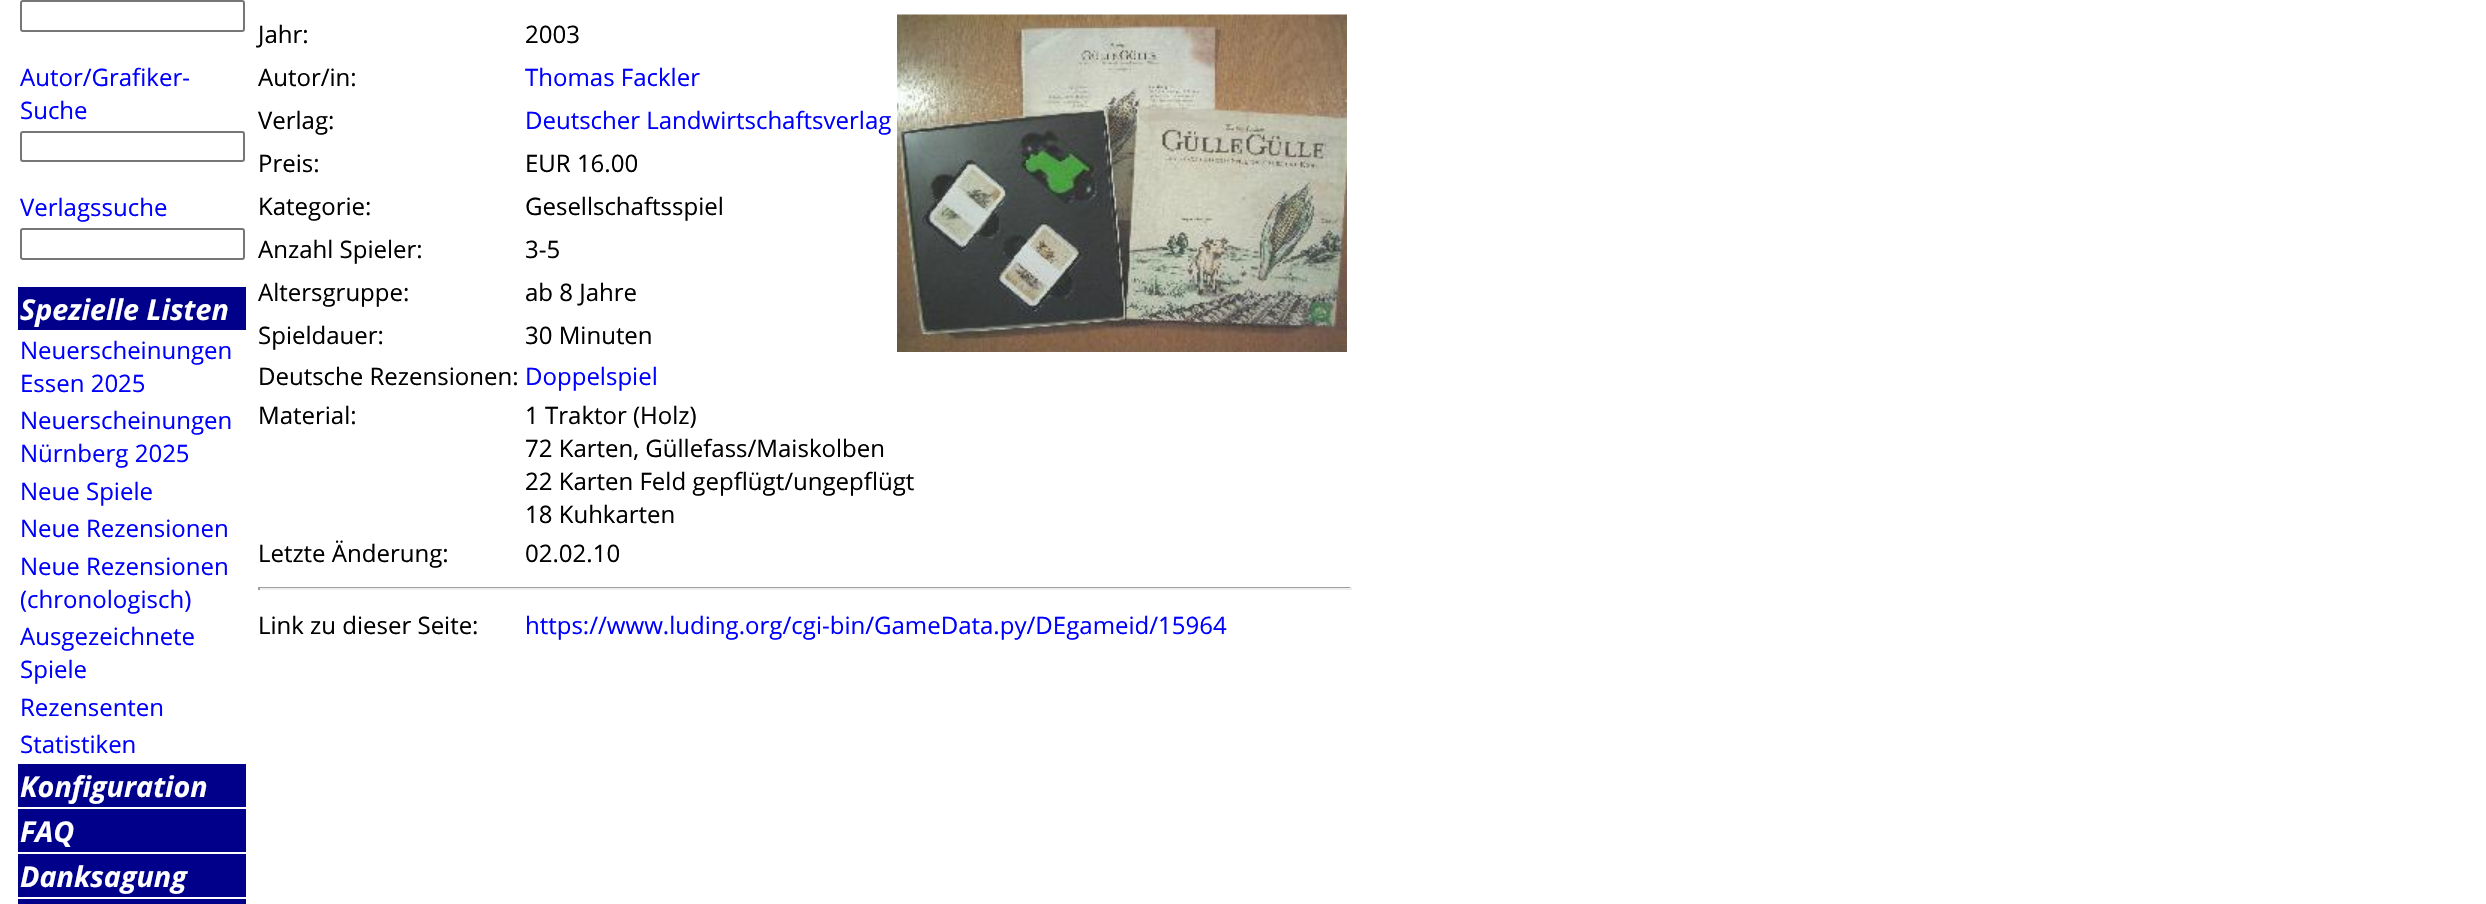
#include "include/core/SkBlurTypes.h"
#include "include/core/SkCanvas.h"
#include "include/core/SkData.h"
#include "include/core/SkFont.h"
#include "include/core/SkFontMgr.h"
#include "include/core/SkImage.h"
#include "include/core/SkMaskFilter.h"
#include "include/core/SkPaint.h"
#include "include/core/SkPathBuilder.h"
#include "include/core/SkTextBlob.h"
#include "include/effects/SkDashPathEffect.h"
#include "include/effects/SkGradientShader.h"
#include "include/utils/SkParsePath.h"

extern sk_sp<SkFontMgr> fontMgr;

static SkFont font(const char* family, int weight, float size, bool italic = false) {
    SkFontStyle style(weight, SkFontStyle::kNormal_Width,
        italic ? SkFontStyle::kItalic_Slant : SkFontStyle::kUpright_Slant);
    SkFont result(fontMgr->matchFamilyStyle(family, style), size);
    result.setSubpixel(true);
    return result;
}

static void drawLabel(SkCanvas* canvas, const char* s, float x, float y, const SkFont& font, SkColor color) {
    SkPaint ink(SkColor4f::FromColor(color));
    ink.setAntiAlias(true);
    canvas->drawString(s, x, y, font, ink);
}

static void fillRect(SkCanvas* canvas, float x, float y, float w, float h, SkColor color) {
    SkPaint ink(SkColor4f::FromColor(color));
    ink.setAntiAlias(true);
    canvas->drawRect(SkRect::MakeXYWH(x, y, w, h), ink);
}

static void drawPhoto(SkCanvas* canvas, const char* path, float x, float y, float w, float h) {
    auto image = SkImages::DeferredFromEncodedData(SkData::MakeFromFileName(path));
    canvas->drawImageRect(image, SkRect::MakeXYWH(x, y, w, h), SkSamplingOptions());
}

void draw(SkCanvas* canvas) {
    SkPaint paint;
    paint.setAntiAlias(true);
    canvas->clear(0xFFFFFFFF);
    paint.setStroke(true);
    paint.setStrokeWidth(2);
    paint.setColor(0xFF767676);
    canvas->drawRoundRect(SkRect::MakeXYWH(21, 1, 223, 30), 2, 2, paint);
    SkFont font1 = font("Open Sans", 400, 24);
    drawLabel(canvas, "Autor/Grafiker-", 20, 86, font1, 0xFF0000FF);
    drawLabel(canvas, "Suche", 20, 119, font1, 0xFF0000FF);
    canvas->drawRoundRect(SkRect::MakeXYWH(21, 132, 223, 29), 2, 2, paint);
    drawLabel(canvas, "Verlagssuche", 20, 216, font1, 0xFF0000FF);
    canvas->drawRoundRect(SkRect::MakeXYWH(21, 229, 223, 30), 2, 2, paint);
    fillRect(canvas, 18, 287, 228, 43, 0xFF00008B);
    SkFont font2 = font("Open Sans", 700, 28.75f, true);
    drawLabel(canvas, "Spezielle Listen", 20, 320, font2, 0xFFFFFFFF);
    drawLabel(canvas, "Neuerscheinungen", 20, 359, font1, 0xFF0000FF);
    drawLabel(canvas, "Essen 2025", 20, 392, font1, 0xFF0000FF);
    drawLabel(canvas, "Neuerscheinungen", 20, 429, font1, 0xFF0000FF);
    drawLabel(canvas, "Nürnberg 2025", 20, 462, font1, 0xFF0000FF);
    drawLabel(canvas, "Neue Spiele", 20, 500, font1, 0xFF0000FF);
    drawLabel(canvas, "Neue Rezensionen", 20, 537, font1, 0xFF0000FF);
    drawLabel(canvas, "Neue Rezensionen", 20, 575, font1, 0xFF0000FF);
    drawLabel(canvas, "(chronologisch)", 20, 608, font1, 0xFF0000FF);
    drawLabel(canvas, "Ausgezeichnete", 20, 645, font1, 0xFF0000FF);
    drawLabel(canvas, "Spiele", 20, 678, font1, 0xFF0000FF);
    drawLabel(canvas, "Rezensenten", 20, 716, font1, 0xFF0000FF);
    drawLabel(canvas, "Statistiken", 20, 753, font1, 0xFF0000FF);
    fillRect(canvas, 18, 764, 228, 43, 0xFF00008B);
    drawLabel(canvas, "Konfiguration", 20, 797, font2, 0xFFFFFFFF);
    fillRect(canvas, 18, 809, 228, 43, 0xFF00008B);
    drawLabel(canvas, "FAQ", 20, 842, font2, 0xFFFFFFFF);
    fillRect(canvas, 18, 854, 228, 43, 0xFF00008B);
    drawLabel(canvas, "Danksagung", 20, 887, font2, 0xFFFFFFFF);
    fillRect(canvas, 18, 899, 228, 5, 0xFF00008B);
    drawLabel(canvas, "Jahr:", 258, 43, font1, 0xFF000000);
    drawLabel(canvas, "2003", 525, 43, font1, 0xFF000000);
    drawPhoto(canvas, "assets/img1.png", 897, 14, 450, 338);
    drawLabel(canvas, "Autor/in:", 258, 86, font1, 0xFF000000);
    drawLabel(canvas, "Thomas Fackler", 525, 86, font1, 0xFF0000FF);
    drawLabel(canvas, "Verlag:", 258, 129, font1, 0xFF000000);
    drawLabel(canvas, "Deutscher Landwirtschaftsverlag", 525, 129, font1, 0xFF0000FF);
    drawLabel(canvas, "Preis:", 258, 172, font1, 0xFF000000);
    drawLabel(canvas, "EUR 16.00", 525, 172, font1, 0xFF000000);
    drawLabel(canvas, "Kategorie:", 258, 215, font1, 0xFF000000);
    drawLabel(canvas, "Gesellschaftsspiel", 525, 215, font1, 0xFF000000);
    drawLabel(canvas, "Anzahl Spieler:", 258, 258, font1, 0xFF000000);
    drawLabel(canvas, "3-5", 525, 258, font1, 0xFF000000);
    drawLabel(canvas, "Altersgruppe:", 258, 301, font1, 0xFF000000);
    drawLabel(canvas, "ab 8 Jahre", 525, 301, font1, 0xFF000000);
    drawLabel(canvas, "Spieldauer:", 258, 344, font1, 0xFF000000);
    drawLabel(canvas, "30 Minuten", 525, 344, font1, 0xFF000000);
    drawLabel(canvas, "Deutsche Rezensionen:", 258, 385, font1, 0xFF000000);
    drawLabel(canvas, "Doppelspiel", 525, 385, font1, 0xFF0000FF);
    drawLabel(canvas, "Material:", 258, 424, font1, 0xFF000000);
    drawLabel(canvas, "1 Traktor (Holz)", 525, 424, font1, 0xFF000000);
    drawLabel(canvas, "72 Karten, Güllefass/Maiskolben", 525, 457, font1, 0xFF000000);
    drawLabel(canvas, "22 Karten Feld gepflügt/ungepflügt", 525, 490, font1, 0xFF000000);
    drawLabel(canvas, "18 Kuhkarten", 525, 523, font1, 0xFF000000);
    drawLabel(canvas, "Letzte Änderung:", 258, 562, font1, 0xFF000000);
    drawLabel(canvas, "02.02.10", 525, 562, font1, 0xFF000000);
    fillRect(canvas, 258, 587, 1094, 1, 0xFF9F9F9F);
    fillRect(canvas, 1350, 587, 2, 3, 0xFFEEEEEE);
    fillRect(canvas, 258, 588, 1094, 2, 0xFFEEEEEE);
    fillRect(canvas, 258, 587, 2, 3, 0xFF9F9F9F);
    drawLabel(canvas, "Link zu dieser Seite:", 258, 634, font1, 0xFF000000);
    drawLabel(canvas, "https://www.luding.org/cgi-bin/GameData.py/DEgameid/15964", 525, 634, font1, 0xFF0000FF);
}
